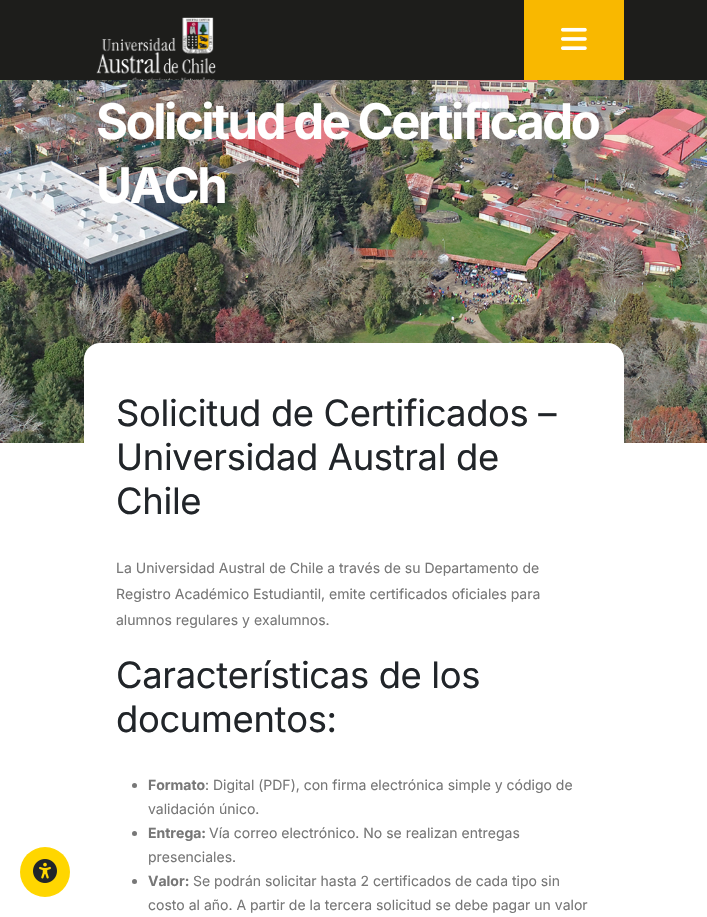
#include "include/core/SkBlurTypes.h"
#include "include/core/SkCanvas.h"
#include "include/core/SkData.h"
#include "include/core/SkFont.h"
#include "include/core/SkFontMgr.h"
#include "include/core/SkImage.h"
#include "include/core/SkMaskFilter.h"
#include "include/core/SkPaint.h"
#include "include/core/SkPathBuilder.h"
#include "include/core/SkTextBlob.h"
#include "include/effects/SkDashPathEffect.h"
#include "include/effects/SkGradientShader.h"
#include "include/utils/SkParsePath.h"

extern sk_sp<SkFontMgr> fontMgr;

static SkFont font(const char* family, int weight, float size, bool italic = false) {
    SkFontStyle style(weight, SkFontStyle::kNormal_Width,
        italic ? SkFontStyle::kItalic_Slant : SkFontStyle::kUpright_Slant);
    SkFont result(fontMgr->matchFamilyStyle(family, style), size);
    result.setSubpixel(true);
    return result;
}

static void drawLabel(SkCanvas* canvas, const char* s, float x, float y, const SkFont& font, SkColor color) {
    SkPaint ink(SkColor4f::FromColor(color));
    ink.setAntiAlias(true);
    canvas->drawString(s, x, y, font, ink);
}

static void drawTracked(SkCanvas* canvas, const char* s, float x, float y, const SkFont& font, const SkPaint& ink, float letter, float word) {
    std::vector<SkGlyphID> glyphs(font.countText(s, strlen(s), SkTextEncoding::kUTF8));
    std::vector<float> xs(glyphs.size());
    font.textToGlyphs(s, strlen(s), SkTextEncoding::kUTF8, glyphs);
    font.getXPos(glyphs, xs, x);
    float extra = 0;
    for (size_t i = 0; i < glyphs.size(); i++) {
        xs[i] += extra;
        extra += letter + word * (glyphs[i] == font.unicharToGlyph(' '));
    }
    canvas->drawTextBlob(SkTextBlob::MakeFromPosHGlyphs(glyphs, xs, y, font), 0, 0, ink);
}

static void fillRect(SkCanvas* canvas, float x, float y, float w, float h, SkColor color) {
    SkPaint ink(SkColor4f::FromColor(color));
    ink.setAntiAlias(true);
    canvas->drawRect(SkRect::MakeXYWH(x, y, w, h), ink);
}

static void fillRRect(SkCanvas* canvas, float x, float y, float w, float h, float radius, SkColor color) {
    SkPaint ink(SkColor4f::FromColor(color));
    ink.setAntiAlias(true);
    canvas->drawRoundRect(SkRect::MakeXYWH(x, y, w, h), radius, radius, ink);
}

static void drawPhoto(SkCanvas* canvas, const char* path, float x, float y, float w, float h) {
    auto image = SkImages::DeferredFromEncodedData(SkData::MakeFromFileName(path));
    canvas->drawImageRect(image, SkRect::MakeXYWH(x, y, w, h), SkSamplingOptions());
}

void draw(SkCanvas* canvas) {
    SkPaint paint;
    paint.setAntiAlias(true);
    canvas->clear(0xFFFFFFFF);
    paint.setColor(0xFFFFD600);
    canvas->drawCircle(45, 872, 25, paint);
    drawPhoto(canvas, "assets/img1.png", 33, 859, 24, 24);
    fillRect(canvas, 0, 0, 707, 80, 0xFF1D1D1B);
    drawPhoto(canvas, "assets/img2.png", 96, 17, 120, 63);
    fillRect(canvas, 524, 0, 100, 80, 0xFFF9B800);
    drawPhoto(canvas, "assets/img3.png", 561, 27, 26, 23);
    drawPhoto(canvas, "assets/img4.png", 0, 80, 707, 363);
    SkFont font1 = font("Inter", 700, 49);
    paint.setColor(0xFFFFFFFF);
    drawTracked(canvas, "Solicitud de Certificado", 96, 139, font1, paint, -2.45f, 0);
    drawTracked(canvas, "UACh", 96, 203, font1, paint, -2.45f, 0);
    fillRRect(canvas, 84, 343, 540, 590, 16, 0xFFFFFFFF);
    SkFont font2 = font("Inter", 400, 36.4f);
    paint.setColor(0xFF212529);
    drawTracked(canvas, "Solicitud de Certificados –", 116, 426, font2, paint, -0.35f, 0);
    drawTracked(canvas, "Universidad Austral de", 116, 470, font2, paint, -0.35f, 0);
    drawTracked(canvas, "Chile", 116, 514, font2, paint, -0.35f, 0);
    SkFont font3 = font("Inter", 400, 14);
    drawLabel(canvas, "La Universidad Austral de Chile a través de su Departamento de", 116, 573, font3, 0xFF777777);
    drawLabel(canvas, "Registro Académico Estudiantil, emite certificados oficiales para", 116, 599, font3, 0xFF777777);
    drawLabel(canvas, "alumnos regulares y exalumnos.", 116, 625, font3, 0xFF777777);
    drawTracked(canvas, "Características de los", 116, 688, font2, paint, -0.35f, 0);
    drawTracked(canvas, "documentos:", 116, 732, font2, paint, -0.35f, 0);
    paint.setColor(0xFF777777);
    canvas->drawCircle(134.5f, 785.5f, 2.5f, paint);
    SkFont font4 = font("Inter", 700, 14);
    drawLabel(canvas, "Formato", 148, 790, font4, 0xFF777777);
    drawLabel(canvas, ": Digital (PDF), con firma electrónica simple y código de", 205, 790, font3, 0xFF777777);
    drawLabel(canvas, "validación único.", 148, 814, font3, 0xFF777777);
    canvas->drawCircle(134.5f, 833.5f, 2.5f, paint);
    drawLabel(canvas, "Entrega:", 148, 838, font4, 0xFF777777);
    drawLabel(canvas, "Vía correo electrónico. No se realizan entregas", 209, 838, font3, 0xFF777777);
    drawLabel(canvas, "presenciales.", 148, 862, font3, 0xFF777777);
    canvas->drawCircle(134.5f, 881.5f, 2.5f, paint);
    drawLabel(canvas, "Valor:", 148, 886, font4, 0xFF777777);
    drawLabel(canvas, "Se podrán solicitar hasta 2 certificados de cada tipo sin", 193, 886, font3, 0xFF777777);
    drawLabel(canvas, "costo al año. A partir de la tercera solicitud se debe pagar un valor", 148, 910, font3, 0xFF777777);
}
